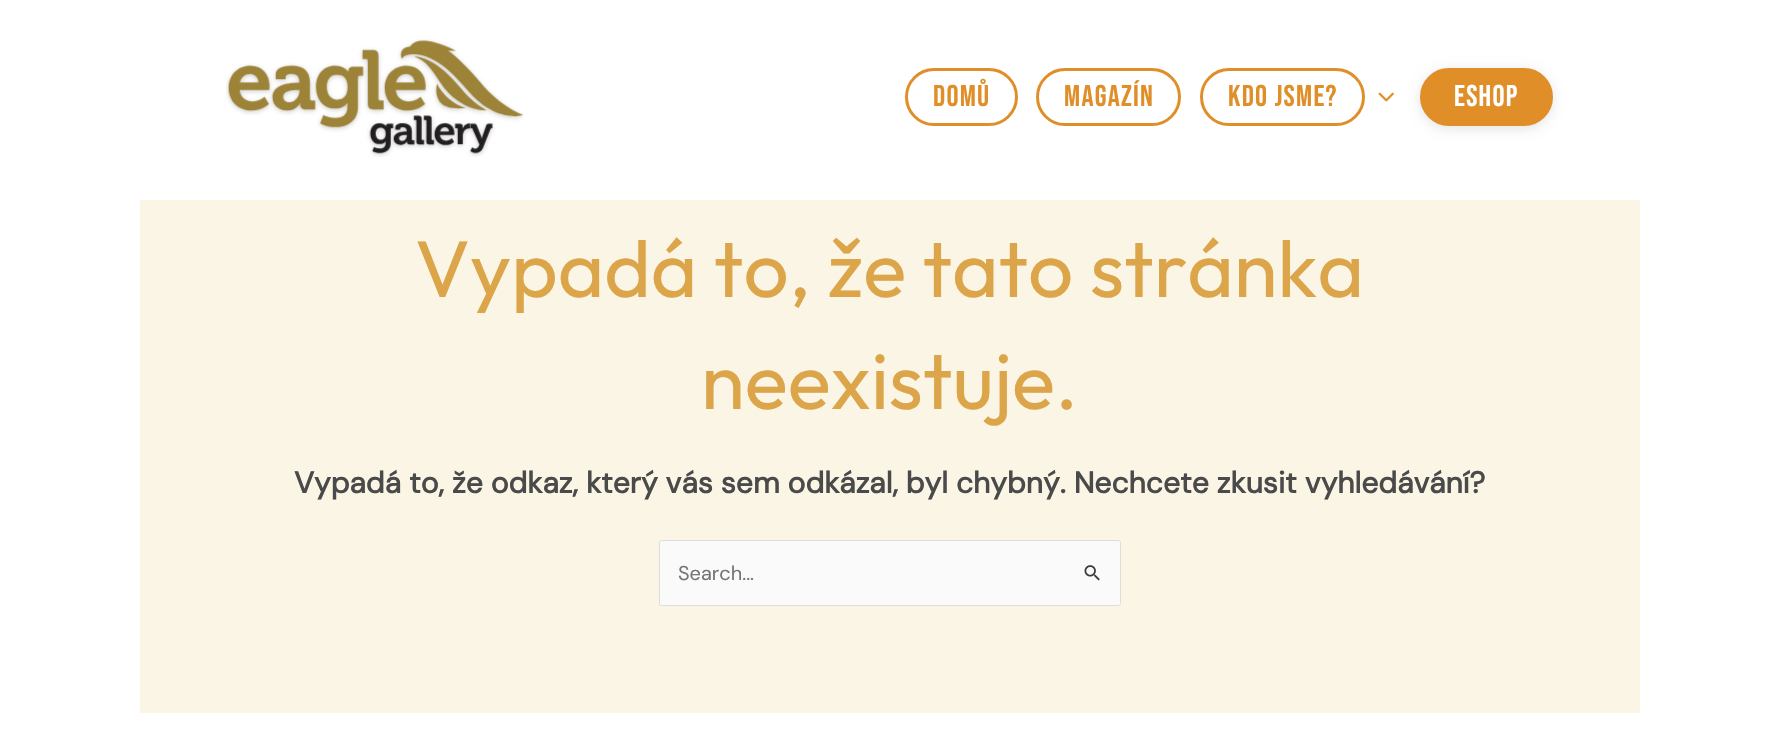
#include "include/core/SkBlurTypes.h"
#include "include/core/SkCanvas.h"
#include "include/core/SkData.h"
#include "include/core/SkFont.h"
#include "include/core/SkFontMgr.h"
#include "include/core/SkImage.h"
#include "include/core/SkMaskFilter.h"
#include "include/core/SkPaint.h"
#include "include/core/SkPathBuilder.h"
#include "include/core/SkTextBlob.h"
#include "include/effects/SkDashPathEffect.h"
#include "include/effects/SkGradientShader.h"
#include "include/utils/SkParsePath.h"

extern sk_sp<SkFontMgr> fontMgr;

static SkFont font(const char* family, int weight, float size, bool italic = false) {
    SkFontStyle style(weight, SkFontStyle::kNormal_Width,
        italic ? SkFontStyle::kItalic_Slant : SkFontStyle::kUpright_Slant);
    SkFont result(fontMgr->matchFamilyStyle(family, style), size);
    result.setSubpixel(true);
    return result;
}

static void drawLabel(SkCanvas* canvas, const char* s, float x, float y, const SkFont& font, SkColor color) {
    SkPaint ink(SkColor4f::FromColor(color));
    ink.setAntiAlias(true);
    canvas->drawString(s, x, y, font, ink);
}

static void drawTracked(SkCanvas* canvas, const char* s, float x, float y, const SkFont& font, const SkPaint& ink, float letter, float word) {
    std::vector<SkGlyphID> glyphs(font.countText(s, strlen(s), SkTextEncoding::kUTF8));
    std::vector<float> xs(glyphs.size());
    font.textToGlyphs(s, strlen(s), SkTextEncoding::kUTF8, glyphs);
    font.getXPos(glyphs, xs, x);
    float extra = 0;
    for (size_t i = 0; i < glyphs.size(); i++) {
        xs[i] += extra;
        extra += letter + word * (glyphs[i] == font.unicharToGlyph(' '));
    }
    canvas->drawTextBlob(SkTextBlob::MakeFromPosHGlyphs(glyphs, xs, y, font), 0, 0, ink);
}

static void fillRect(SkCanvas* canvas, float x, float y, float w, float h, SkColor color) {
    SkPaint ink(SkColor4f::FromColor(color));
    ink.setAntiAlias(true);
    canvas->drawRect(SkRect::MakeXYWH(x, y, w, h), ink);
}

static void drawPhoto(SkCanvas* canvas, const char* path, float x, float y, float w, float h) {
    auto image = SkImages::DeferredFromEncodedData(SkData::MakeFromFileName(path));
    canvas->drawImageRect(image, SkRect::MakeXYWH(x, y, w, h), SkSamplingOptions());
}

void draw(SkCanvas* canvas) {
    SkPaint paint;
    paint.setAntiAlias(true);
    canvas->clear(0xFFFFFFFF);
    drawPhoto(canvas, "assets/img1.png", 226, 39, 298, 118);
    paint.setStroke(true);
    paint.setStrokeWidth(3);
    paint.setColor(0xFFE08E28);
    canvas->drawRoundRect(SkRect::MakeXYWH(906.5f, 69.5f, 110, 55), 27.5f, 27.5f, paint);
    SkFont font1 = font("Bebas Neue", 400, 30);
    paint.setStroke(false);
    drawTracked(canvas, "DOMŮ", 933, 106, font1, paint, 1.25f, 0);
    paint.setStroke(true);
    canvas->drawRoundRect(SkRect::MakeXYWH(1037.5f, 69.5f, 142, 55), 27.5f, 27.5f, paint);
    paint.setStroke(false);
    drawTracked(canvas, "MAGAZÍN", 1064, 106, font1, paint, 1.25f, 0);
    paint.setStroke(true);
    canvas->drawRoundRect(SkRect::MakeXYWH(1201.5f, 69.5f, 162, 55), 27.5f, 27.5f, paint);
    paint.setStroke(false);
    drawTracked(canvas, "KDO JSME?", 1228, 106, font1, paint, 1.25f, 0);
    drawPhoto(canvas, "assets/img2.png", 1378, 92, 16, 10);
    paint.setColor(0x1A000000);
    paint.setMaskFilter(SkMaskFilter::MakeBlur(kNormal_SkBlurStyle, 6));
    canvas->drawRoundRect(SkRect::MakeXYWH(1420, 70, 133, 59), 29.5f, 29.5f, paint);
    paint.setMaskFilter(nullptr);
    paint.setColor(0xFFE08E28);
    canvas->drawRoundRect(SkRect::MakeXYWH(1421.5f, 69.5f, 130, 55), 27.5f, 27.5f, paint);
    paint.setStroke(true);
    canvas->drawRoundRect(SkRect::MakeXYWH(1421.5f, 69.5f, 130, 55), 27.5f, 27.5f, paint);
    paint.setStroke(false);
    paint.setColor(0xFFFFFFFF);
    drawTracked(canvas, "ESHOP", 1454, 106, font1, paint, 1.25f, 0);
    fillRect(canvas, 140, 200, 1500, 513, 0xFFFAF5E5);
    SkFont font2 = font("Outfit", 400, 80);
    drawLabel(canvas, "Vypadá to, že tato stránka", 415, 297, font2, 0xFFDCA54A);
    drawLabel(canvas, "neexistuje.", 701, 409, font2, 0xFFDCA54A);
    SkFont font3 = font("DM Sans", 700, 30);
    drawLabel(canvas, "Vypadá to, že odkaz, který vás sem odkázal, byl chybný. Nechcete zkusit vyhledávání?", 294, 493, font3, 0xFF4A4A4A);
    paint.setColor(0xFFFAFAFA);
    canvas->drawRoundRect(SkRect::MakeXYWH(659.5f, 540.5f, 461, 65), 2, 2, paint);
    paint.setStroke(true);
    paint.setStrokeWidth(1);
    paint.setColor(0xFFDDDDDD);
    canvas->drawRoundRect(SkRect::MakeXYWH(659.5f, 540.5f, 461, 65), 2, 2, paint);
    SkFont font4 = font("DM Sans", 400, 20);
    drawLabel(canvas, "Search...", 678, 580, font4, 0xFF757575);
    drawPhoto(canvas, "assets/img3.png", 1084, 565, 16, 16);
}
